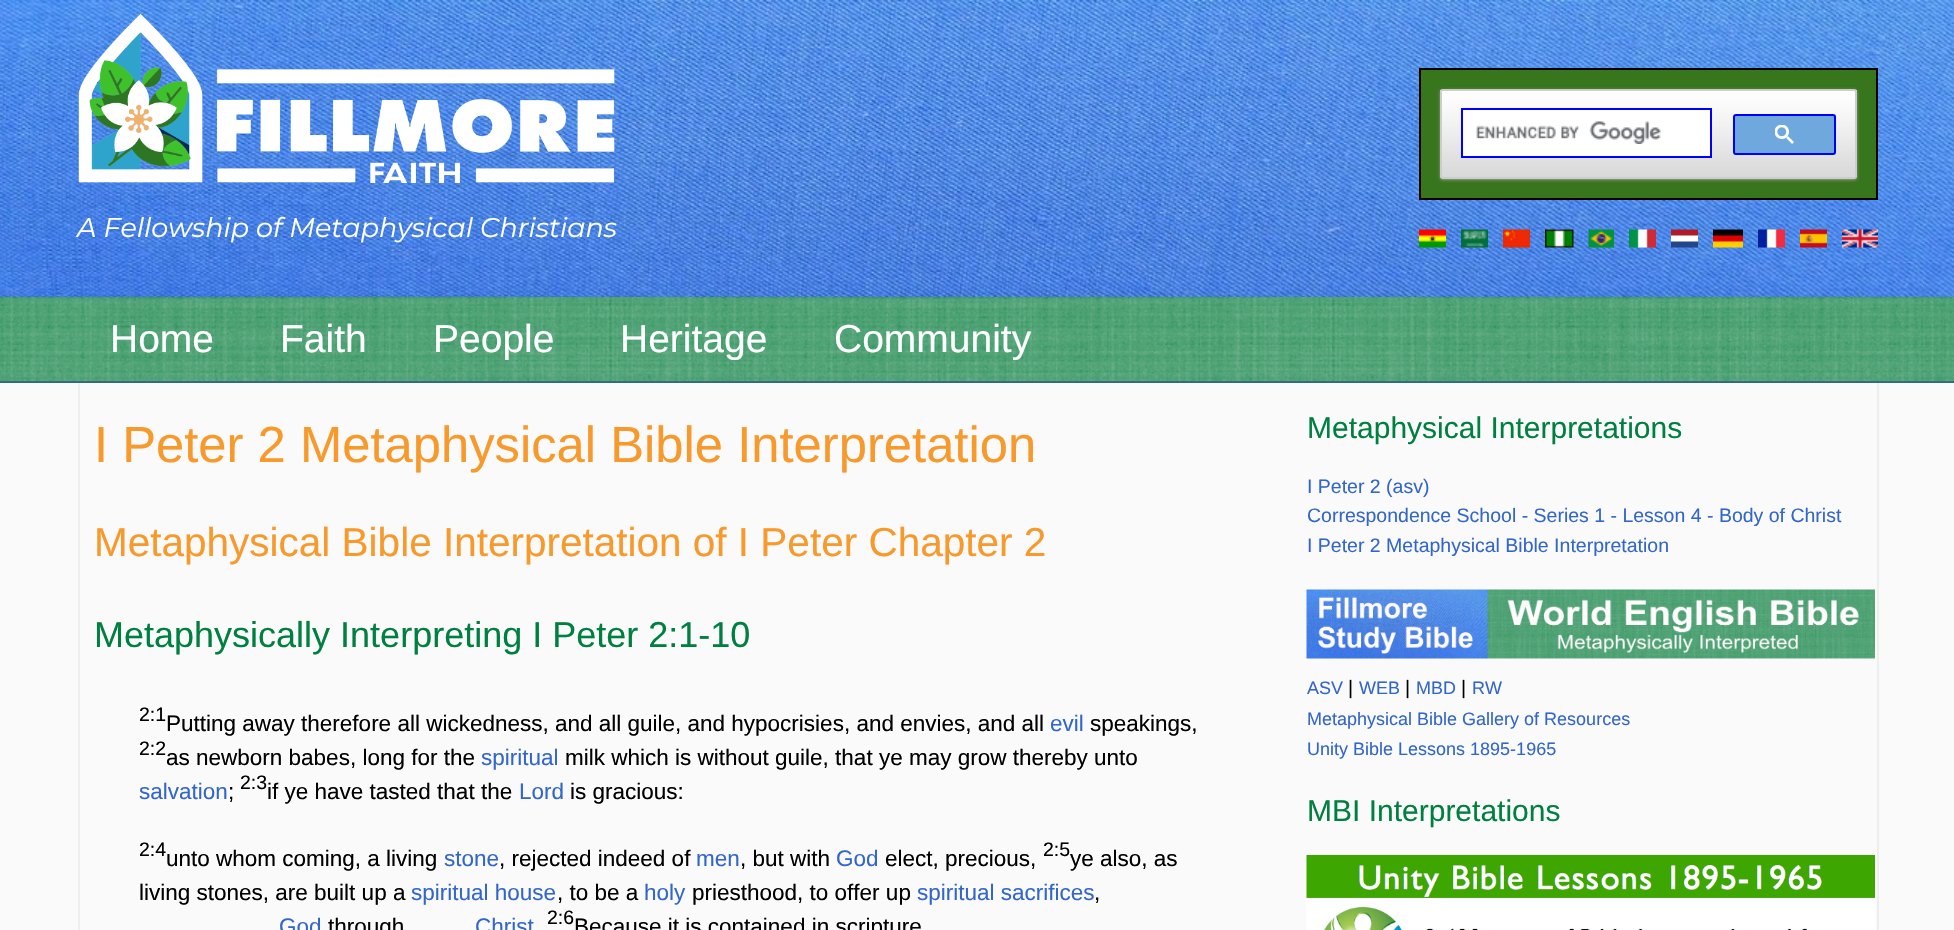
#include "include/core/SkBlurTypes.h"
#include "include/core/SkCanvas.h"
#include "include/core/SkData.h"
#include "include/core/SkFont.h"
#include "include/core/SkFontMgr.h"
#include "include/core/SkImage.h"
#include "include/core/SkMaskFilter.h"
#include "include/core/SkPaint.h"
#include "include/core/SkPathBuilder.h"
#include "include/core/SkTextBlob.h"
#include "include/effects/SkDashPathEffect.h"
#include "include/effects/SkGradientShader.h"
#include "include/utils/SkParsePath.h"

extern sk_sp<SkFontMgr> fontMgr;

static SkFont font(const char* family, int weight, float size, bool italic = false) {
    SkFontStyle style(weight, SkFontStyle::kNormal_Width,
        italic ? SkFontStyle::kItalic_Slant : SkFontStyle::kUpright_Slant);
    SkFont result(fontMgr->matchFamilyStyle(family, style), size);
    result.setSubpixel(true);
    return result;
}

static void drawLabel(SkCanvas* canvas, const char* s, float x, float y, const SkFont& font, SkColor color) {
    SkPaint ink(SkColor4f::FromColor(color));
    ink.setAntiAlias(true);
    canvas->drawString(s, x, y, font, ink);
}

static void fillRect(SkCanvas* canvas, float x, float y, float w, float h, SkColor color) {
    SkPaint ink(SkColor4f::FromColor(color));
    ink.setAntiAlias(true);
    canvas->drawRect(SkRect::MakeXYWH(x, y, w, h), ink);
}

static void drawPhoto(SkCanvas* canvas, const char* path, float x, float y, float w, float h) {
    auto image = SkImages::DeferredFromEncodedData(SkData::MakeFromFileName(path));
    canvas->drawImageRect(image, SkRect::MakeXYWH(x, y, w, h), SkSamplingOptions());
}

void draw(SkCanvas* canvas) {
    SkPaint paint;
    paint.setAntiAlias(true);
    canvas->clear(0xFFFFFFFF);
    drawPhoto(canvas, "assets/img1.png", 0, 0, 1954, 297);
    drawPhoto(canvas, "assets/img2.png", 78, 13, 537, 170);
    SkFont font1 = font("Montserrat", 400, 27, true);
    drawLabel(canvas, "A Fellowship of Metaphysical Christians", 77, 237, font1, 0xFFFFFFFF);
    paint.setColor(0xFF38761D);
    canvas->drawRect(SkRect::MakeXYWH(1420, 69, 457, 130), paint);
    paint.setStroke(true);
    paint.setStrokeWidth(2);
    paint.setColor(0xFF000000);
    canvas->drawRect(SkRect::MakeXYWH(1420, 69, 457, 130), paint);
    paint.setStroke(false);
    paint.setColor(0xFF999999);
    paint.setMaskFilter(SkMaskFilter::MakeBlur(kNormal_SkBlurStyle, 1.5f));
    canvas->drawRoundRect(SkRect::MakeXYWH(1440, 90, 417, 90), 3, 3, paint);
    paint.setMaskFilter(nullptr);
    drawPhoto(canvas, "assets/img3.png", 1440, 90, 417, 89);
    paint.setStroke(true);
    paint.setColor(0xFFCCCCCC);
    canvas->drawRoundRect(SkRect::MakeXYWH(1441, 90, 415, 88), 2, 2, paint);
    paint.setStroke(false);
    paint.setColor(0xFFFFFFFF);
    canvas->drawRect(SkRect::MakeXYWH(1462, 109, 249, 48), paint);
    paint.setStroke(true);
    paint.setColor(0xFF0000FF);
    canvas->drawRect(SkRect::MakeXYWH(1462, 109, 249, 48), paint);
    drawPhoto(canvas, "assets/img4.png", 1476, 121, 185, 23);
    paint.setStroke(false);
    paint.setColor(0xFF6FA8DC);
    canvas->drawRoundRect(SkRect::MakeXYWH(1734, 115, 101, 39), 2, 2, paint);
    paint.setStroke(true);
    paint.setColor(0xFF0000FF);
    canvas->drawRoundRect(SkRect::MakeXYWH(1734, 115, 101, 39), 2, 2, paint);
    drawPhoto(canvas, "assets/img5.png", 1775, 125, 19, 19);
    drawPhoto(canvas, "assets/img6.png", 1419, 229, 27, 19);
    drawPhoto(canvas, "assets/img7.png", 1461, 229, 27, 19);
    drawPhoto(canvas, "assets/img8.png", 1503, 229, 27, 19);
    drawPhoto(canvas, "assets/img9.png", 1545, 229, 29, 19);
    drawPhoto(canvas, "assets/img10.png", 1588, 229, 26, 19);
    drawPhoto(canvas, "assets/img11.png", 1629, 229, 27, 19);
    drawPhoto(canvas, "assets/img12.png", 1671, 229, 27, 19);
    drawPhoto(canvas, "assets/img13.png", 1713, 229, 30, 19);
    drawPhoto(canvas, "assets/img14.png", 1758, 229, 27, 19);
    drawPhoto(canvas, "assets/img15.png", 1800, 229, 27, 19);
    drawPhoto(canvas, "assets/img16.png", 1842, 229, 36, 19);
    paint.setStroke(false);
    paint.setColor(0x40000000);
    paint.setMaskFilter(SkMaskFilter::MakeBlur(kNormal_SkBlurStyle, 7.5f));
    canvas->drawRect(SkRect::MakeXYWH(-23, 305, 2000, 85), paint);
    paint.setMaskFilter(nullptr);
    drawPhoto(canvas, "assets/img17.png", 0, 297, 1954, 84);
    fillRect(canvas, 0, 381, 1954, 2, 0xFF306B87);
    SkFont font2 = font("Liberation Sans", 400, 39);
    drawLabel(canvas, "Home", 110, 352, font2, 0xFFFFFFFF);
    drawLabel(canvas, "Faith", 280, 352, font2, 0xFFFFFFFF);
    drawLabel(canvas, "People", 433, 352, font2, 0xFFFFFFFF);
    drawLabel(canvas, "Heritage", 620, 352, font2, 0xFFFFFFFF);
    drawLabel(canvas, "Community", 834, 352, font2, 0xFFFFFFFF);
    fillRect(canvas, 0, 383, 1954, 547, 0xFFFAFAFA);
    fillRect(canvas, 1877, 383, 2, 547, 0xFFEEEEEE);
    fillRect(canvas, 78, 383, 2, 547, 0xFFEEEEEE);
    SkFont font3 = font("Liberation Sans", 400, 50.75f);
    drawLabel(canvas, "I Peter 2 Metaphysical Bible Interpretation", 94, 462, font3, 0xFFF8992B);
    SkFont font4 = font("Liberation Sans", 400, 40.5f);
    drawLabel(canvas, "Metaphysical Bible Interpretation of I Peter Chapter 2", 94, 556, font4, 0xFFF8992B);
    SkFont font5 = font("Liberation Sans", 400, 36);
    drawLabel(canvas, "Metaphysically Interpreting I Peter 2:1-10", 94, 647, font5, 0xFF008040);
    SkFont font6 = font("Liberation Sans", 400, 19.5f);
    drawLabel(canvas, "2:1", 139, 721, font6, 0xFF000000);
    SkFont font7 = font("Liberation Sans", 400, 22.5f);
    drawLabel(canvas, "Putting away therefore all wickedness, and all guile, and hypocrisies, and envies, and all", 166, 731, font7, 0xFF000000);
    drawLabel(canvas, "evil", 1050, 731, font7, 0xFF3366CC);
    drawLabel(canvas, "speakings,", 1090, 731, font7, 0xFF000000);
    drawLabel(canvas, "2:2", 139, 755, font6, 0xFF000000);
    drawLabel(canvas, "as newborn babes, long for the", 166, 765, font7, 0xFF000000);
    drawLabel(canvas, "spiritual", 481, 765, font7, 0xFF3366CC);
    drawLabel(canvas, "milk which is without guile, that ye may grow thereby unto", 565, 765, font7, 0xFF000000);
    drawLabel(canvas, "salvation", 139, 799, font7, 0xFF3366CC);
    drawLabel(canvas, ";", 228, 799, font7, 0xFF000000);
    drawLabel(canvas, "2:3", 240, 789, font6, 0xFF000000);
    drawLabel(canvas, "if ye have tasted that the", 267, 799, font7, 0xFF000000);
    drawLabel(canvas, "Lord", 519, 799, font7, 0xFF3366CC);
    drawLabel(canvas, "is gracious:", 570, 799, font7, 0xFF000000);
    drawLabel(canvas, "2:4", 139, 856, font6, 0xFF000000);
    drawLabel(canvas, "unto whom coming, a living", 166, 866, font7, 0xFF000000);
    drawLabel(canvas, "stone", 444, 866, font7, 0xFF3366CC);
    drawLabel(canvas, ", rejected indeed of", 499, 866, font7, 0xFF000000);
    drawLabel(canvas, "men", 696, 866, font7, 0xFF3366CC);
    drawLabel(canvas, ", but with", 740, 866, font7, 0xFF000000);
    drawLabel(canvas, "God", 836, 866, font7, 0xFF3366CC);
    drawLabel(canvas, "elect, precious,", 885, 866, font7, 0xFF000000);
    drawLabel(canvas, "2:5", 1043, 856, font6, 0xFF000000);
    drawLabel(canvas, "ye also, as", 1070, 866, font7, 0xFF000000);
    drawLabel(canvas, "living stones, are built up a", 139, 900, font7, 0xFF000000);
    drawLabel(canvas, "spiritual house", 411, 900, font7, 0xFF3366CC);
    drawLabel(canvas, ", to be a", 557, 900, font7, 0xFF000000);
    drawLabel(canvas, "holy", 644, 900, font7, 0xFF3366CC);
    drawLabel(canvas, "priesthood, to offer up", 692, 900, font7, 0xFF000000);
    drawLabel(canvas, "spiritual sacrifices", 917, 900, font7, 0xFF3366CC);
    drawLabel(canvas, ",", 1094, 900, font7, 0xFF000000);
    drawLabel(canvas, "God", 279, 934, font7, 0xFF3366CC);
    drawLabel(canvas, "through", 328, 934, font7, 0xFF000000);
    drawLabel(canvas, "Christ", 475, 934, font7, 0xFF3366CC);
    drawLabel(canvas, "2:6", 547, 924, font6, 0xFF000000);
    drawLabel(canvas, "Because it is contained in scripture", 574, 934, font7, 0xFF000000);
    SkFont font8 = font("Liberation Sans", 400, 30);
    drawLabel(canvas, "Metaphysical Interpretations", 1307, 438, font8, 0xFF008040);
    drawLabel(canvas, "I Peter 2 (asv)", 1307, 493, font6, 0xFF3366CC);
    drawLabel(canvas, "Correspondence School - Series 1 - Lesson 4 - Body of Christ", 1307, 522, font6, 0xFF3366CC);
    drawLabel(canvas, "I Peter 2 Metaphysical Bible Interpretation", 1307, 552, font6, 0xFF3366CC);
    drawPhoto(canvas, "assets/img18.png", 1306, 589, 569, 70);
    SkFont font9 = font("Liberation Sans", 400, 18);
    drawLabel(canvas, "ASV", 1307, 694, font9, 0xFF3366CC);
    drawLabel(canvas, "|", 1348, 694, font6, 0xFF000000);
    drawLabel(canvas, "WEB", 1359, 694, font9, 0xFF3366CC);
    drawLabel(canvas, "|", 1405, 694, font6, 0xFF000000);
    drawLabel(canvas, "MBD", 1416, 694, font9, 0xFF3366CC);
    drawLabel(canvas, "|", 1461, 694, font6, 0xFF000000);
    drawLabel(canvas, "RW", 1472, 694, font9, 0xFF3366CC);
    drawLabel(canvas, "Metaphysical Bible Gallery of Resources", 1307, 725, font9, 0xFF3366CC);
    drawLabel(canvas, "Unity Bible Lessons 1895-1965", 1307, 755, font9, 0xFF3366CC);
    drawLabel(canvas, "MBI Interpretations", 1307, 821, font8, 0xFF008040);
    drawPhoto(canvas, "assets/img19.png", 1306, 855, 569, 75);
}
